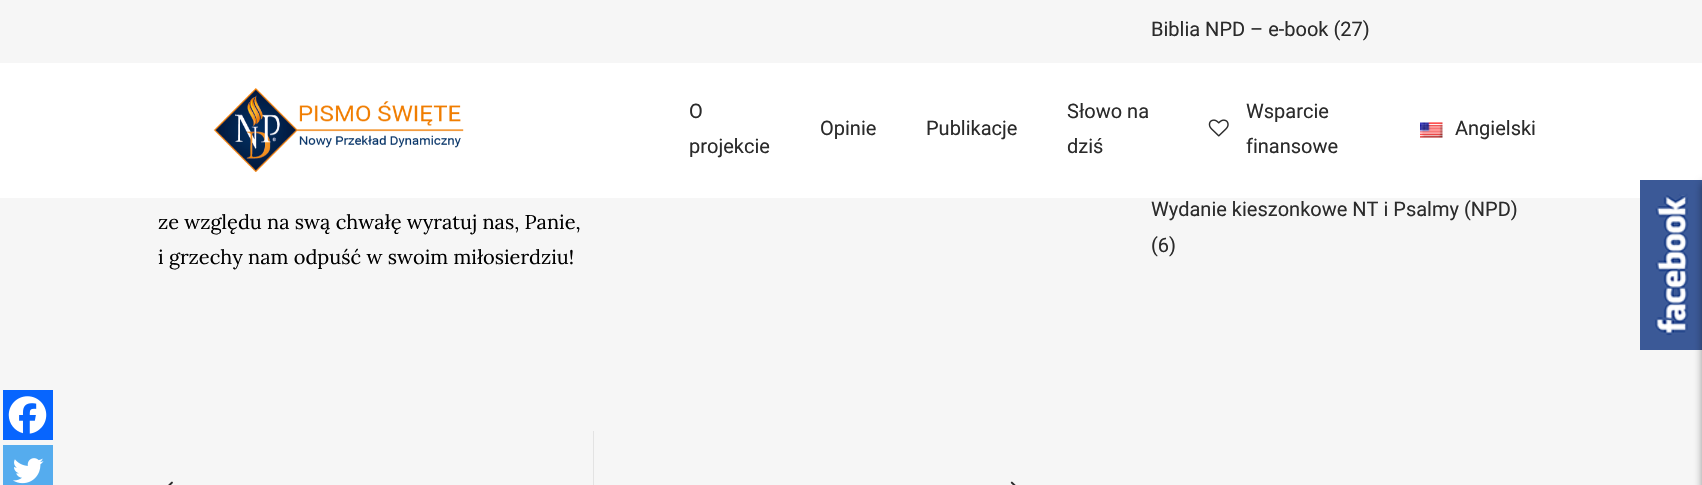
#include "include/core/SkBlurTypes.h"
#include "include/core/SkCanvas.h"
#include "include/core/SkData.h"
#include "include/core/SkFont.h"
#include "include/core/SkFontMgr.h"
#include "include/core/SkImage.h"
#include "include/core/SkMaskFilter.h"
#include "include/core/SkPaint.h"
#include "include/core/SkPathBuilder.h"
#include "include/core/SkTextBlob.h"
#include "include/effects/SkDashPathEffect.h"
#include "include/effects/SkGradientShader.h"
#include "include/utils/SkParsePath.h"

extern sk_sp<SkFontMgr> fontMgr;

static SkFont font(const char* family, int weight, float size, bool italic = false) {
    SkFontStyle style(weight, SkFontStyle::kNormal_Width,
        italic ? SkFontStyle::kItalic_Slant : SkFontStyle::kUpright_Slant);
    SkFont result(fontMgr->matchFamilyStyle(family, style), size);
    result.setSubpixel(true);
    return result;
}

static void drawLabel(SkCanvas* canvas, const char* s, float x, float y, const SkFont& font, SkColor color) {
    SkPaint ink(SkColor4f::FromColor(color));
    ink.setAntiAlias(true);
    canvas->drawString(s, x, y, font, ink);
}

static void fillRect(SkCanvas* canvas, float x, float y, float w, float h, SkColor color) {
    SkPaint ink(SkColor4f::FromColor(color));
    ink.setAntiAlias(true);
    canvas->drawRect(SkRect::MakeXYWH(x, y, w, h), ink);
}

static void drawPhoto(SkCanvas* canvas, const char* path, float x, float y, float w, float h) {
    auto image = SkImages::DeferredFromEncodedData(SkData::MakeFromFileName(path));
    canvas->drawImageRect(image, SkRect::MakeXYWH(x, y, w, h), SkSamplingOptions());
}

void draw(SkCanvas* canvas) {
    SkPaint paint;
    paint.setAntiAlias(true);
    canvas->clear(0xFFF6F6F6);
    SkFont font1 = font("Lora", 400, 20);
    drawLabel(canvas, "ze względu na swą chwałę wyratuj nas, Panie,", 158, 229, font1, 0xFF000000);
    drawLabel(canvas, "i grzechy nam odpuść w swoim miłosierdziu!", 158, 264, font1, 0xFF000000);
    fillRect(canvas, 3, 390, 50, 50, 0xFF0765FE);
    drawPhoto(canvas, "assets/img1.png", 8, 396, 39, 38);
    fillRect(canvas, 3, 445, 50, 40, 0xFF55ACEE);
    drawPhoto(canvas, "assets/img2.png", 13, 458, 31, 26);
    drawPhoto(canvas, "assets/img3.png", 168, 481, 5, 4);
    fillRect(canvas, 593, 431, 1, 54, 0xFFE3E3E3);
    drawPhoto(canvas, "assets/img4.png", 1010, 481, 6, 4);
    SkFont font2 = font("Roboto", 400, 20);
    drawLabel(canvas, "Biblia NPD – e-book (27)", 1151, 36, font2, 0xFF2B2B2B);
    drawLabel(canvas, "Wydanie kieszonkowe NT i Psalmy (NPD)", 1151, 216, font2, 0xFF2B2B2B);
    drawLabel(canvas, "(6)", 1151, 252, font2, 0xFF2B2B2B);
    fillRect(canvas, 0, 63, 1702, 135, 0xFFFFFFFF);
    drawPhoto(canvas, "assets/img5.png", 213, 88, 251, 84);
    drawLabel(canvas, "O", 689, 118, font2, 0xFF2B2B2B);
    drawLabel(canvas, "projekcie", 689, 153, font2, 0xFF2B2B2B);
    drawLabel(canvas, "Opinie", 820, 135, font2, 0xFF2B2B2B);
    drawLabel(canvas, "Publikacje", 926, 135, font2, 0xFF2B2B2B);
    drawLabel(canvas, "Słowo na", 1067, 118, font2, 0xFF2B2B2B);
    drawLabel(canvas, "dziś", 1067, 153, font2, 0xFF2B2B2B);
    drawLabel(canvas, "Wsparcie", 1246, 118, font2, 0xFF2B2B2B);
    drawPhoto(canvas, "assets/img6.png", 1208, 119, 21, 18);
    drawLabel(canvas, "finansowe", 1246, 153, font2, 0xFF2B2B2B);
    drawPhoto(canvas, "assets/img7.png", 1420, 122, 23, 16);
    drawLabel(canvas, "Angielski", 1455, 135, font2, 0xFF2B2B2B);
    drawPhoto(canvas, "assets/img8.png", 1640, 180, 62, 170);
    paint.setColor(0x80000000);
    paint.setMaskFilter(SkMaskFilter::MakeBlur(kNormal_SkBlurStyle, 4.5f));
    canvas->drawRect(SkRect::MakeXYWH(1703, 183, 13, 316), paint);
    paint.setMaskFilter(nullptr);
}
